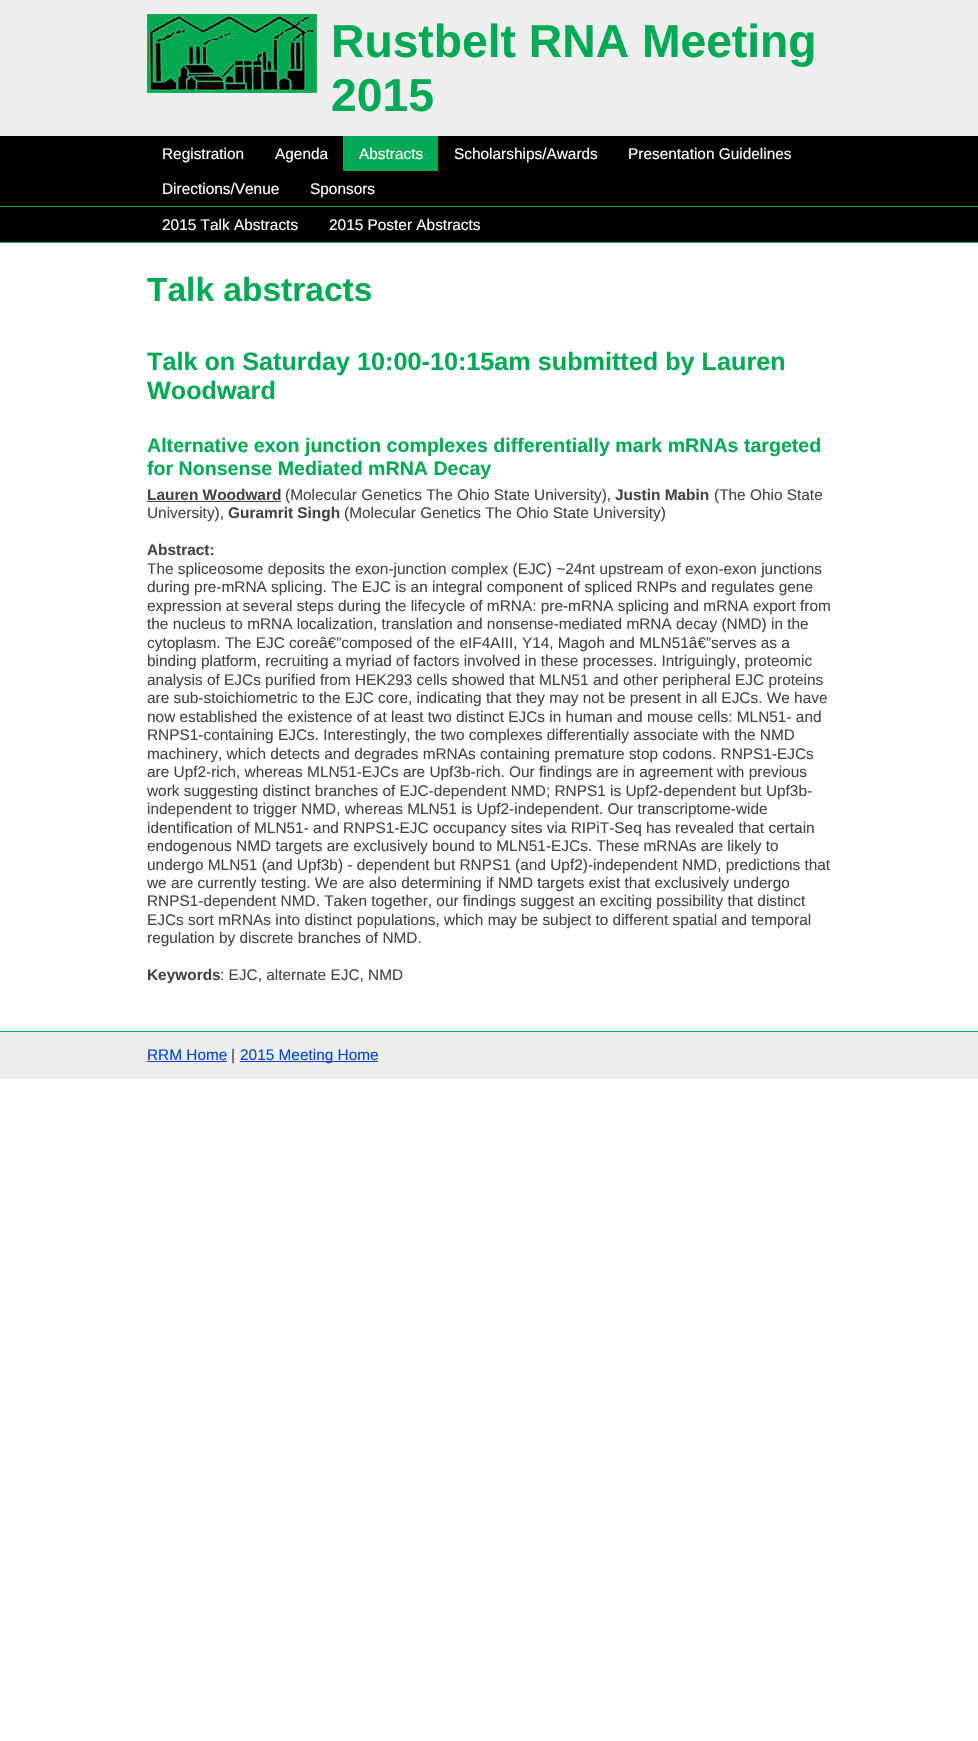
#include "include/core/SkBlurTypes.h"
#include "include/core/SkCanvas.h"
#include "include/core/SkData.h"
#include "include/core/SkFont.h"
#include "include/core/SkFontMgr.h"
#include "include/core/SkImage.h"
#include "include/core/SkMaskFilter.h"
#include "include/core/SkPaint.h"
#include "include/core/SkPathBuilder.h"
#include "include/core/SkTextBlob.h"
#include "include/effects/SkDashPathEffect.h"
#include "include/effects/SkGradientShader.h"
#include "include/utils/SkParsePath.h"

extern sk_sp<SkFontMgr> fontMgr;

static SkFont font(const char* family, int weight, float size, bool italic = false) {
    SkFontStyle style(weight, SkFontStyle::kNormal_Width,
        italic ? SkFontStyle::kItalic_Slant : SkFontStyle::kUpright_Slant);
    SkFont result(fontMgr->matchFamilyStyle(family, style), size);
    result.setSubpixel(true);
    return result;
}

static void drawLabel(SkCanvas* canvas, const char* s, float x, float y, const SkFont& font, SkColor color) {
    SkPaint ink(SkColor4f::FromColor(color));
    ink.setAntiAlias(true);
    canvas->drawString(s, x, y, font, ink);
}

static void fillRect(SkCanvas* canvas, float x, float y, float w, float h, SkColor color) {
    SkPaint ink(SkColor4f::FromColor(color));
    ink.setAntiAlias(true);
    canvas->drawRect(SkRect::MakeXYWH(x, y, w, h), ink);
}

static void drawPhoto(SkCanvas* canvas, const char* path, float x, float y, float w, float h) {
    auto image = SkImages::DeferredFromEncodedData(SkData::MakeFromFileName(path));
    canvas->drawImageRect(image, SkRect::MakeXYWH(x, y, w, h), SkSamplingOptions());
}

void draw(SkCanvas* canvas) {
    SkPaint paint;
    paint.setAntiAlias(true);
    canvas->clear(0xFFFFFFFF);
    fillRect(canvas, 0, 0, 978, 136, 0xFFEEEEEE);
    drawPhoto(canvas, "assets/img1.png", 147, 14, 170, 79);
    SkFont font1 = font("Liberation Sans", 700, 46.25f);
    drawLabel(canvas, "Rustbelt RNA Meeting", 331, 57, font1, 0xFF00AA55);
    drawLabel(canvas, "2015", 331, 111, font1, 0xFF00AA55);
    fillRect(canvas, 0, 136, 978, 70, 0xFF000000);
    fillRect(canvas, 0, 206, 978, 1, 0xFF00AA55);
    SkFont font2 = font("Liberation Sans", 400, 15.4f);
    drawLabel(canvas, "Registration", 162, 159, font2, 0xFFFFFFFF);
    drawLabel(canvas, "Agenda", 275, 159, font2, 0xFFFFFFFF);
    fillRect(canvas, 343, 136, 95, 35, 0xFF00AA55);
    drawLabel(canvas, "Abstracts", 359, 159, font2, 0xFFFFFFFF);
    drawLabel(canvas, "Scholarships/Awards", 454, 159, font2, 0xFFFFFFFF);
    drawLabel(canvas, "Presentation Guidelines", 628, 159, font2, 0xFFFFFFFF);
    drawLabel(canvas, "Directions/Venue", 162, 194, font2, 0xFFFFFFFF);
    drawLabel(canvas, "Sponsors", 310, 194, font2, 0xFFFFFFFF);
    fillRect(canvas, 0, 207, 978, 35, 0xFF000000);
    fillRect(canvas, 0, 242, 978, 1, 0xFF00AA55);
    drawLabel(canvas, "2015 Talk Abstracts", 162, 230, font2, 0xFFFFFFFF);
    drawLabel(canvas, "2015 Poster Abstracts", 329, 230, font2, 0xFFFFFFFF);
    SkFont font3 = font("Liberation Sans", 700, 33.5f);
    drawLabel(canvas, "Talk abstracts", 147, 301, font3, 0xFF00AA55);
    SkFont font4 = font("Liberation Sans", 700, 25.2f);
    drawLabel(canvas, "Talk on Saturday 10:00-10:15am submitted by Lauren", 147, 370, font4, 0xFF00AA55);
    drawLabel(canvas, "Woodward", 147, 399, font4, 0xFF00AA55);
    SkFont font5 = font("Liberation Sans", 700, 19.6f);
    drawLabel(canvas, "Alternative exon junction complexes differentially mark mRNAs targeted", 147, 452, font5, 0xFF00AA55);
    drawLabel(canvas, "for Nonsense Mediated mRNA Decay", 147, 475, font5, 0xFF00AA55);
    SkFont font6 = font("Liberation Sans", 700, 15.4f);
    drawLabel(canvas, "Lauren Woodward", 147, 500, font6, 0xFF444444);
    fillRect(canvas, 147, 501, 134, 1, 0xFF444444);
    drawLabel(canvas, "(Molecular Genetics The Ohio State University),", 285, 500, font2, 0xFF444444);
    drawLabel(canvas, "Justin Mabin", 615, 500, font6, 0xFF444444);
    drawLabel(canvas, "(The Ohio State", 714, 500, font2, 0xFF444444);
    drawLabel(canvas, "University),", 147, 518, font2, 0xFF444444);
    drawLabel(canvas, "Guramrit Singh", 228, 518, font6, 0xFF444444);
    drawLabel(canvas, "(Molecular Genetics The Ohio State University)", 344, 518, font2, 0xFF444444);
    drawLabel(canvas, "Abstract:", 147, 555, font6, 0xFF444444);
    drawLabel(canvas, "The spliceosome deposits the exon-junction complex (EJC) ~24nt upstream of exon-exon junctions", 147, 574, font2, 0xFF444444);
    drawLabel(canvas, "during pre-mRNA splicing. The EJC is an integral component of spliced RNPs and regulates gene", 147, 592, font2, 0xFF444444);
    drawLabel(canvas, "expression at several steps during the lifecycle of mRNA: pre-mRNA splicing and mRNA export from", 147, 611, font2, 0xFF444444);
    drawLabel(canvas, "the nucleus to mRNA localization, translation and nonsense-mediated mRNA decay (NMD) in the", 147, 629, font2, 0xFF444444);
    drawLabel(canvas, "cytoplasm. The EJC coreâ€”composed of the eIF4AIII, Y14, Magoh and MLN51â€”serves as a", 147, 648, font2, 0xFF444444);
    drawLabel(canvas, "binding platform, recruiting a myriad of factors involved in these processes. Intriguingly, proteomic", 147, 666, font2, 0xFF444444);
    drawLabel(canvas, "analysis of EJCs purified from HEK293 cells showed that MLN51 and other peripheral EJC proteins", 147, 685, font2, 0xFF444444);
    drawLabel(canvas, "are sub-stoichiometric to the EJC core, indicating that they may not be present in all EJCs. We have", 147, 703, font2, 0xFF444444);
    drawLabel(canvas, "now established the existence of at least two distinct EJCs in human and mouse cells: MLN51- and", 147, 722, font2, 0xFF444444);
    drawLabel(canvas, "RNPS1-containing EJCs. Interestingly, the two complexes differentially associate with the NMD", 147, 740, font2, 0xFF444444);
    drawLabel(canvas, "machinery, which detects and degrades mRNAs containing premature stop codons. RNPS1-EJCs", 147, 759, font2, 0xFF444444);
    drawLabel(canvas, "are Upf2-rich, whereas MLN51-EJCs are Upf3b-rich. Our findings are in agreement with previous", 147, 777, font2, 0xFF444444);
    drawLabel(canvas, "work suggesting distinct branches of EJC-dependent NMD; RNPS1 is Upf2-dependent but Upf3b-", 147, 796, font2, 0xFF444444);
    drawLabel(canvas, "independent to trigger NMD, whereas MLN51 is Upf2-independent. Our transcriptome-wide", 147, 814, font2, 0xFF444444);
    drawLabel(canvas, "identification of MLN51- and RNPS1-EJC occupancy sites via RIPiT-Seq has revealed that certain", 147, 833, font2, 0xFF444444);
    drawLabel(canvas, "endogenous NMD targets are exclusively bound to MLN51-EJCs. These mRNAs are likely to", 147, 851, font2, 0xFF444444);
    drawLabel(canvas, "undergo MLN51 (and Upf3b) - dependent but RNPS1 (and Upf2)-independent NMD, predictions that", 147, 870, font2, 0xFF444444);
    drawLabel(canvas, "we are currently testing. We are also determining if NMD targets exist that exclusively undergo", 147, 888, font2, 0xFF444444);
    drawLabel(canvas, "RNPS1-dependent NMD. Taken together, our findings suggest an exciting possibility that distinct", 147, 906, font2, 0xFF444444);
    drawLabel(canvas, "EJCs sort mRNAs into distinct populations, which may be subject to different spatial and temporal", 147, 925, font2, 0xFF444444);
    drawLabel(canvas, "regulation by discrete branches of NMD.", 147, 943, font2, 0xFF444444);
    drawLabel(canvas, "Keywords", 147, 980, font6, 0xFF444444);
    drawLabel(canvas, ": EJC, alternate EJC, NMD", 220, 980, font2, 0xFF444444);
    fillRect(canvas, 0, 1032, 978, 47, 0xFFEEEEEE);
    fillRect(canvas, 0, 1031, 978, 1, 0xFF00AA55);
    drawLabel(canvas, "RRM Home", 147, 1060, font2, 0xFF0044CC);
    fillRect(canvas, 147, 1061, 80, 1, 0xFF0044CC);
    drawLabel(canvas, "|", 231, 1060, font2, 0xFF444444);
    fillRect(canvas, 240, 1061, 138, 1, 0xFF0044CC);
    drawLabel(canvas, "2015 Meeting Home", 240, 1060, font2, 0xFF0044CC);
}
